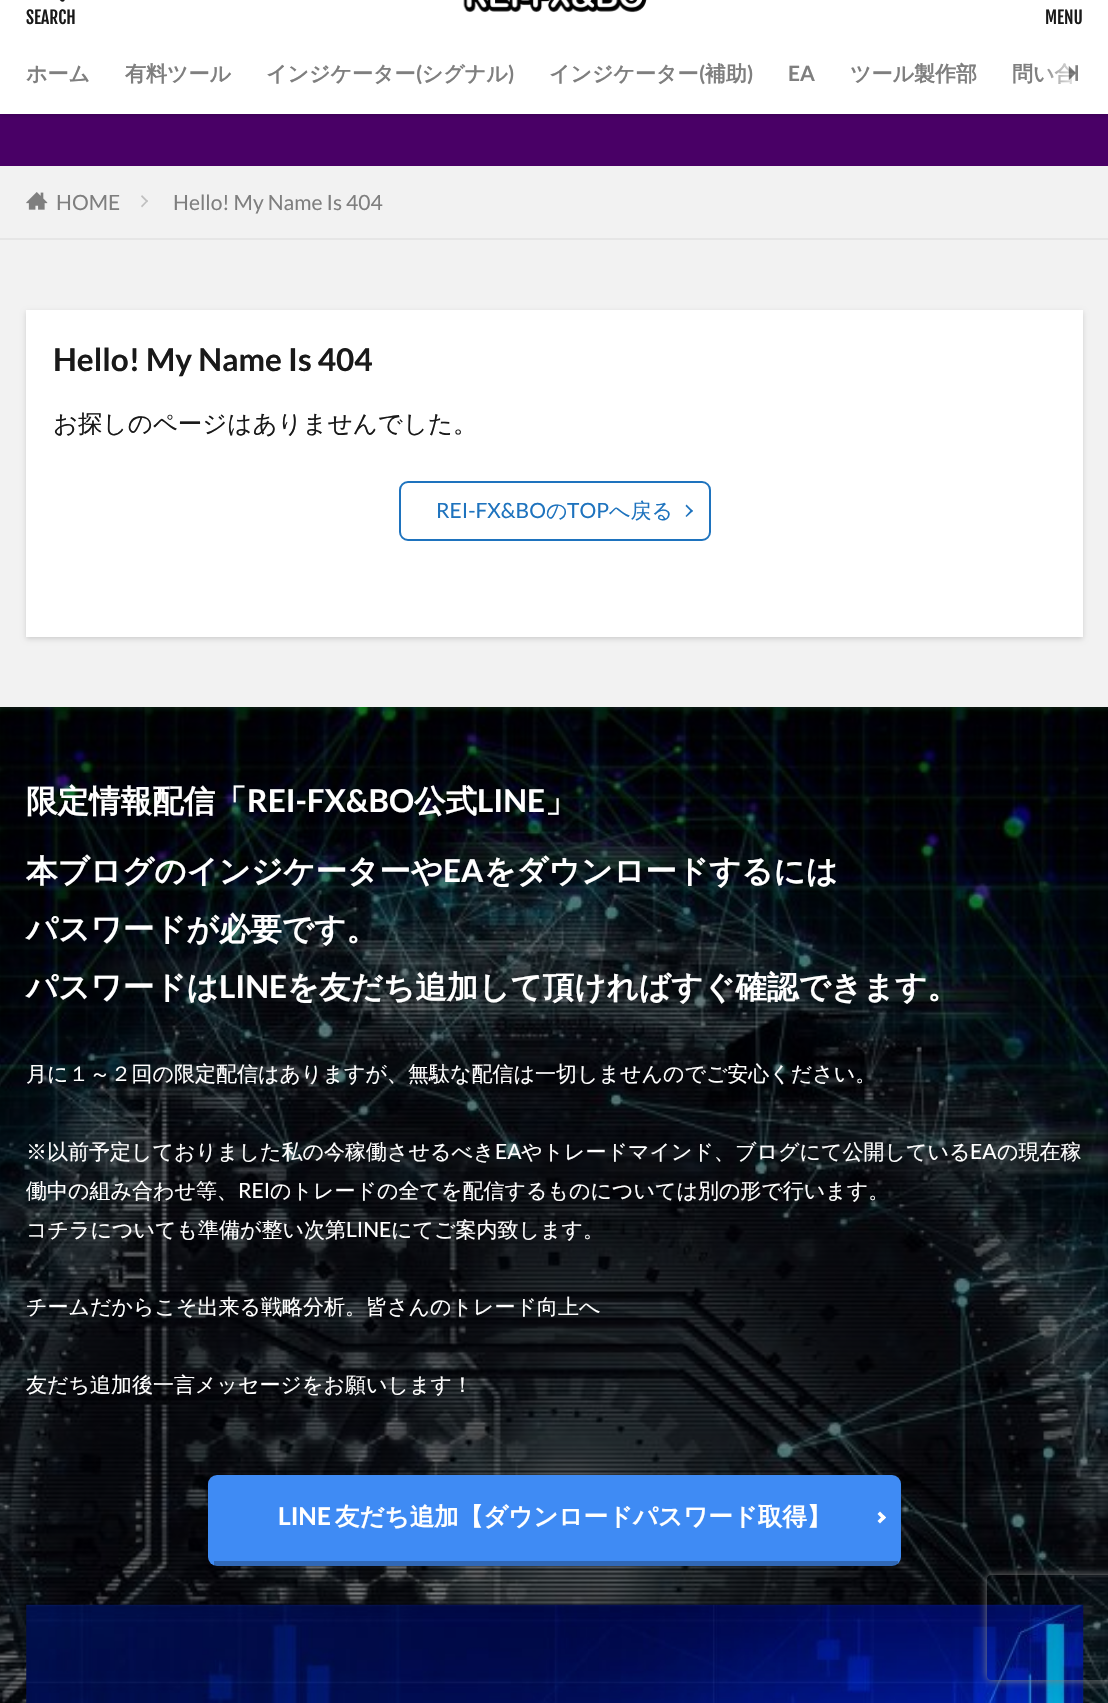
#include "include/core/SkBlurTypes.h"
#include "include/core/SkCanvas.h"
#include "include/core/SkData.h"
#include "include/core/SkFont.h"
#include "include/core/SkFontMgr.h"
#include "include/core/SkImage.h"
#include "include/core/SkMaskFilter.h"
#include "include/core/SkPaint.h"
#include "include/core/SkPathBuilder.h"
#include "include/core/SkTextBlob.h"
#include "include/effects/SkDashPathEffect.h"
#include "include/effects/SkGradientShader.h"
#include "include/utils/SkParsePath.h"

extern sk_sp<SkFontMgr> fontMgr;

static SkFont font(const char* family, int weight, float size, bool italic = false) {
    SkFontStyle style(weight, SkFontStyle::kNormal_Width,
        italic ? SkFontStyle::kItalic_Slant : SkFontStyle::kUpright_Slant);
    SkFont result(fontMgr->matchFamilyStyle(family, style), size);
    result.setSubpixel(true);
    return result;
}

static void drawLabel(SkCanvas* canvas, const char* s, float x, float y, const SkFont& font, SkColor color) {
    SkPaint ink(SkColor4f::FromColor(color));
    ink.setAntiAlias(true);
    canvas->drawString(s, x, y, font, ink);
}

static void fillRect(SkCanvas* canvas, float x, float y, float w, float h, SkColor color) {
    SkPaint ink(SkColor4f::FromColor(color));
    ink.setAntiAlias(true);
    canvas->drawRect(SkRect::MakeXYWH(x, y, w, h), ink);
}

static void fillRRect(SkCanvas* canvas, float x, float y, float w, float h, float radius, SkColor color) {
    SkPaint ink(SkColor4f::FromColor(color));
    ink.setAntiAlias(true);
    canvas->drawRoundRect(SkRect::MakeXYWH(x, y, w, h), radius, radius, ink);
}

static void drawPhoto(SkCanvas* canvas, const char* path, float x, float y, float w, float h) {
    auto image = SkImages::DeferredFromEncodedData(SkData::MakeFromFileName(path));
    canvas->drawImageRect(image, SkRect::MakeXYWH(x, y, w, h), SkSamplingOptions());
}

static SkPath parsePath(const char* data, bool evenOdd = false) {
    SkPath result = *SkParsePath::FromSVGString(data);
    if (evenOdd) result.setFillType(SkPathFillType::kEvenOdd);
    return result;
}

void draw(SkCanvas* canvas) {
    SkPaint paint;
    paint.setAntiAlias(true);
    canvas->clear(0xFFF2F2F2);
    fillRect(canvas, 0, 114, 1108, 52, 0xFF490066);
    paint.setColor(0x26000000);
    paint.setMaskFilter(SkMaskFilter::MakeBlur(kNormal_SkBlurStyle, 2));
    canvas->drawRect(SkRect::MakeXYWH(0, -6, 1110, 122), paint);
    paint.setMaskFilter(nullptr);
    fillRect(canvas, 0, 0, 1108, 114, 0xFFFFFFFF);
    drawPhoto(canvas, "assets/img1.png", 463, 0, 184, 13);
    drawPhoto(canvas, "assets/img2.png", 59, 0, 6, 2);
    SkFont font1 = font("Fjalla One", 400, 17.5f);
    drawLabel(canvas, "SEARCH", 26, 24, font1, 0xFF191919);
    drawLabel(canvas, "MENU", 1045, 24, font1, 0xFF191919);
    SkFont font2 = font("WenQuanYi Zen Hei", 700, 21);
    drawLabel(canvas, "ホーム", 26, 81, font2, 0xFF7F7F7F);
    drawLabel(canvas, "有料ツール", 125, 81, font2, 0xFF7F7F7F);
    drawLabel(canvas, "インジケーター シグナル", 266, 81, font2, 0xFF7F7F7F);
    SkFont font3 = font("Lato", 700, 21);
    drawLabel(canvas, "(", 416, 81, font3, 0xFF7F7F7F);
    drawLabel(canvas, ")", 508, 81, font3, 0xFF7F7F7F);
    drawLabel(canvas, "インジケーター 補助", 549, 81, font2, 0xFF7F7F7F);
    drawLabel(canvas, "(", 699, 81, font3, 0xFF7F7F7F);
    drawLabel(canvas, ")", 747, 81, font3, 0xFF7F7F7F);
    drawLabel(canvas, "EA", 788, 81, font3, 0xFF7F7F7F);
    drawLabel(canvas, "ツール製作部", 850, 81, font2, 0xFF7F7F7F);
    drawLabel(canvas, "問い合", 1012, 81, font2, 0xFF7F7F7F);
    {
        const SkColor colors[] = {0x00FFFFFF, 0xFFFFFFFF};
        const float stops[] = {0, 1};
        const SkPoint ends[] = {{1040, 53}, {1083, 53}};
        paint.setShader(SkGradientShader::MakeLinear(ends, colors, stops, 2, SkTileMode::kClamp));
        paint.setAlpha(255);
    }
    canvas->drawRect(SkRect::MakeXYWH(1041, 63, 34, 21), paint);
    drawPhoto(canvas, "assets/img3.png", 1068, 65, 10, 16);
    fillRect(canvas, 0, 238, 1108, 2, 0xFFE6E6E6);
    drawPhoto(canvas, "assets/img4.png", 26, 192, 22, 18);
    SkFont font4 = font("Lato", 400, 21);
    drawLabel(canvas, "HOME", 56, 210, font4, 0xFF7F7F7F);
    paint.setShader(nullptr);
    paint.setColor(0xFFBFBFBF);
    canvas->drawPath(parsePath("M142 195L148 201L147 202.5L141 196.5Z"), paint);
    canvas->drawPath(parsePath("M147 200L148 201L142 207.5L141 206Z"), paint);
    drawLabel(canvas, "Hello! My Name Is 404", 173, 210, font4, 0xFF7F7F7F);
    paint.setColor(0x26000000);
    paint.setMaskFilter(SkMaskFilter::MakeBlur(kNormal_SkBlurStyle, 2.5f));
    canvas->drawRect(SkRect::MakeXYWH(26, 312, 1057, 327), paint);
    paint.setMaskFilter(nullptr);
    fillRect(canvas, 26, 310, 1057, 327, 0xFFFFFFFF);
    SkFont font5 = font("Lato", 700, 31.5f);
    drawLabel(canvas, "Hello! My Name Is 404", 53, 371, font5, 0xFF191919);
    SkFont font6 = font("WenQuanYi Zen Hei", 500, 24.5f);
    drawLabel(canvas, "お探しのページはありませんでした。", 53, 432, font6, 0xFF191919);
    paint.setStroke(true);
    paint.setStrokeWidth(2);
    paint.setColor(0xFF1E73BE);
    canvas->drawRoundRect(SkRect::MakeXYWH(400, 482, 310, 58), 8, 8, paint);
    drawLabel(canvas, "REI-FX&BO", 436, 518, font4, 0xFF1E73BE);
    SkFont font7 = font("WenQuanYi Zen Hei", 500, 21);
    drawLabel(canvas, "の", 546, 518, font7, 0xFF1E73BE);
    drawLabel(canvas, "TOP", 567, 518, font4, 0xFF1E73BE);
    drawLabel(canvas, "へ戻る", 609, 518, font7, 0xFF1E73BE);
    paint.setStroke(false);
    canvas->drawPath(parsePath("M686.5 504.5L693 511L691.5 512L685.5 506Z"), paint);
    canvas->drawPath(parsePath("M691.5 509.5L693 511L686.5 517L685.5 516Z"), paint);
    drawPhoto(canvas, "assets/img5.png", 0, 707, 1108, 996);
    SkFont font8 = font("WenQuanYi Zen Hei", 700, 31.5f);
    drawLabel(canvas, "限定情報配信「", 26, 812, font8, 0xFFFFFFFF);
    drawLabel(canvas, "REI-FX&BO", 247, 812, font5, 0xFFFFFFFF);
    drawLabel(canvas, "公式", 414, 812, font8, 0xFFFFFFFF);
    drawLabel(canvas, "LINE", 477, 812, font5, 0xFFFFFFFF);
    drawLabel(canvas, "」", 545, 812, font8, 0xFFFFFFFF);
    drawLabel(canvas, "本ブログのインジケーターや", 26, 882, font8, 0xFFFFFFFF);
    drawLabel(canvas, "EA", 443, 882, font5, 0xFFFFFFFF);
    drawLabel(canvas, "をダウンロードするには", 484, 882, font8, 0xFFFFFFFF);
    drawLabel(canvas, "パスワードが必要です。", 26, 940, font8, 0xFFFFFFFF);
    drawLabel(canvas, "パスワードは", 26, 998, font8, 0xFFFFFFFF);
    drawLabel(canvas, "LINE", 219, 998, font5, 0xFFFFFFFF);
    drawLabel(canvas, "を友だち追加して頂ければすぐ確認できます。", 287, 998, font8, 0xFFFFFFFF);
    drawLabel(canvas, "月に１～２回の限定配信はありますが、無駄な配信は一切しませんのでご安心ください。", 26, 1081, font7, 0xFFFFFFFF);
    drawLabel(canvas, "※以前予定しておりました私の今稼働させるべき", 26, 1159, font7, 0xFFFFFFFF);
    drawLabel(canvas, "EA", 495, 1159, font4, 0xFFFFFFFF);
    drawLabel(canvas, "やトレードマインド、ブログにて公開している", 521, 1159, font7, 0xFFFFFFFF);
    drawLabel(canvas, "EA", 970, 1159, font4, 0xFFFFFFFF);
    drawLabel(canvas, "の現在稼", 997, 1159, font7, 0xFFFFFFFF);
    drawLabel(canvas, "働中の組み合わせ等、", 26, 1198, font7, 0xFFFFFFFF);
    drawLabel(canvas, "REI", 238, 1198, font4, 0xFFFFFFFF);
    drawLabel(canvas, "のトレードの全てを配信するものについては別の形で行います。", 270, 1198, font7, 0xFFFFFFFF);
    drawLabel(canvas, "コチラについても準備が整い次第", 26, 1237, font7, 0xFFFFFFFF);
    drawLabel(canvas, "LINE", 346, 1237, font4, 0xFFFFFFFF);
    drawLabel(canvas, "にてご案内致します。", 391, 1237, font7, 0xFFFFFFFF);
    drawLabel(canvas, "チームだからこそ出来る戦略分析。皆さんのトレード向上へ", 26, 1314, font7, 0xFFFFFFFF);
    drawLabel(canvas, "友だち追加後一言メッセージをお願いします！", 26, 1392, font7, 0xFFFFFFFF);
    fillRRect(canvas, 208, 1475, 693, 91, 9, 0xFF3F8BF4);
    fillRect(canvas, 214, 1561, 684, 5, 0x40000000);
    SkFont font9 = font("Lato", 700, 24.5f);
    drawLabel(canvas, "LINE", 278, 1525, font9, 0xFFFFFFFF);
    SkFont font10 = font("WenQuanYi Zen Hei", 700, 24.5f);
    drawLabel(canvas, "友だち追加【ダウンロードパスワード取得】", 335, 1525, font10, 0xFFFFFFFF);
    paint.setColor(0xFFFFFFFF);
    canvas->drawPath(parsePath("M880 1511.5L886 1517.5L883.5 1520L877.5 1514Z"), paint);
    canvas->drawPath(parsePath("M883.5 1515L886 1517.5L880 1523.5L877.5 1521Z"), paint);
    drawPhoto(canvas, "assets/img6.png", 26, 1604, 1058, 99);
    canvas->save();
    canvas->clipPath(parsePath("M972 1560H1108V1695H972ZM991 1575H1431C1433 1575 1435 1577 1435 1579V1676C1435 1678 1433 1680 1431 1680H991C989 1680 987 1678 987 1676V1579C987 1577 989 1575 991 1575Z", true), true);
    paint.setColor(0xFF808080);
    paint.setMaskFilter(SkMaskFilter::MakeBlur(kNormal_SkBlurStyle, 4.5f));
    canvas->drawRoundRect(SkRect::MakeXYWH(987, 1575, 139, 105), 4, 4, paint);
    paint.setMaskFilter(nullptr);
    canvas->restore();
}
